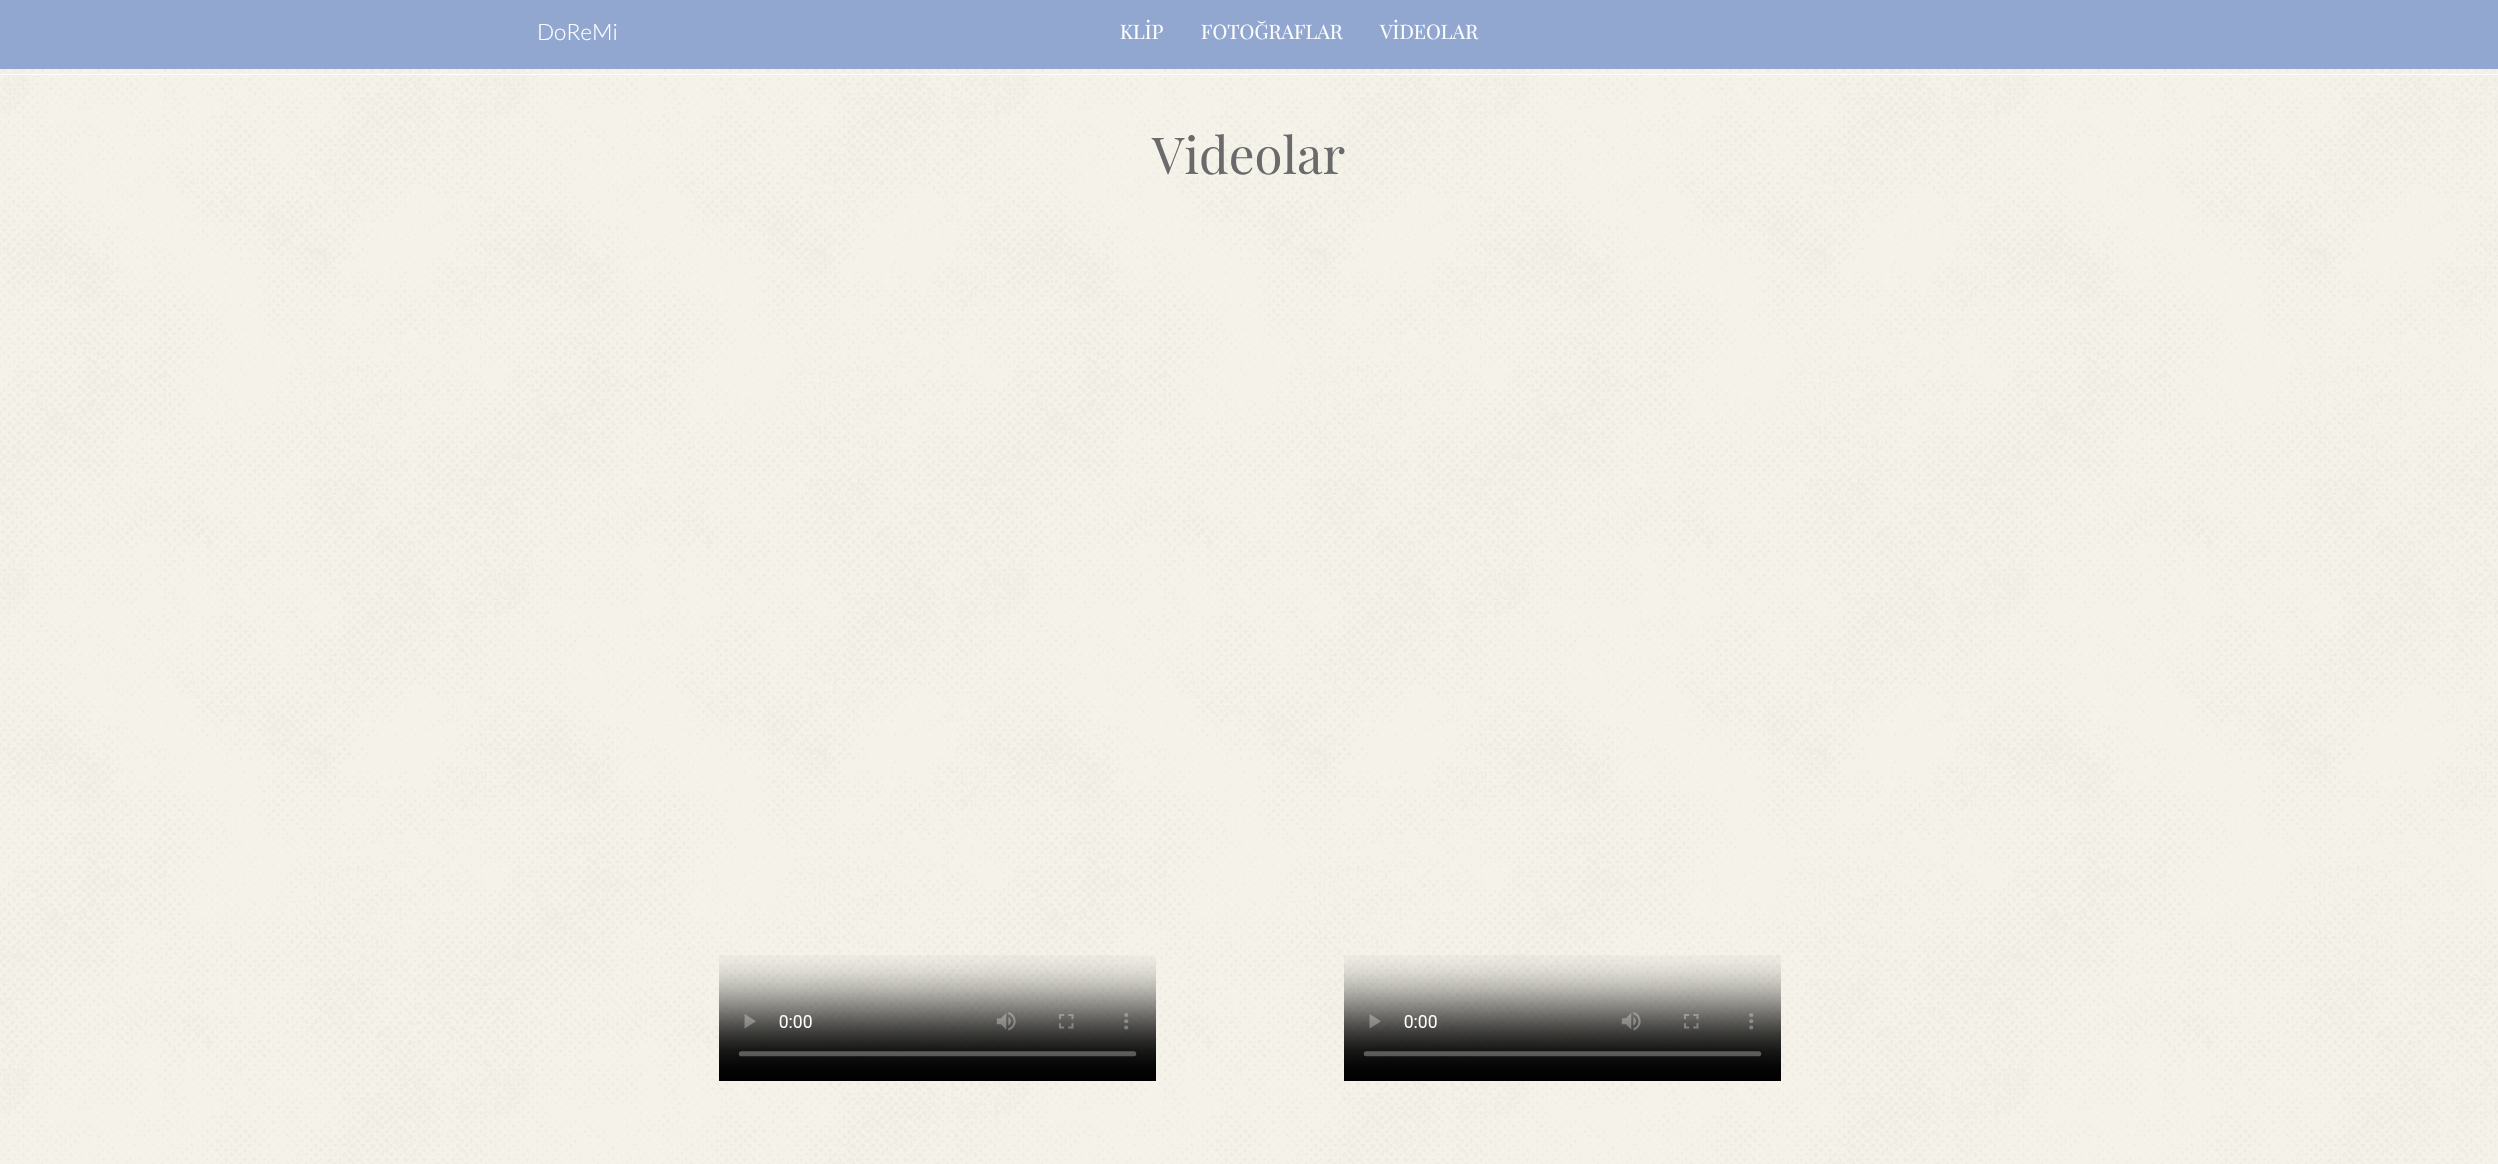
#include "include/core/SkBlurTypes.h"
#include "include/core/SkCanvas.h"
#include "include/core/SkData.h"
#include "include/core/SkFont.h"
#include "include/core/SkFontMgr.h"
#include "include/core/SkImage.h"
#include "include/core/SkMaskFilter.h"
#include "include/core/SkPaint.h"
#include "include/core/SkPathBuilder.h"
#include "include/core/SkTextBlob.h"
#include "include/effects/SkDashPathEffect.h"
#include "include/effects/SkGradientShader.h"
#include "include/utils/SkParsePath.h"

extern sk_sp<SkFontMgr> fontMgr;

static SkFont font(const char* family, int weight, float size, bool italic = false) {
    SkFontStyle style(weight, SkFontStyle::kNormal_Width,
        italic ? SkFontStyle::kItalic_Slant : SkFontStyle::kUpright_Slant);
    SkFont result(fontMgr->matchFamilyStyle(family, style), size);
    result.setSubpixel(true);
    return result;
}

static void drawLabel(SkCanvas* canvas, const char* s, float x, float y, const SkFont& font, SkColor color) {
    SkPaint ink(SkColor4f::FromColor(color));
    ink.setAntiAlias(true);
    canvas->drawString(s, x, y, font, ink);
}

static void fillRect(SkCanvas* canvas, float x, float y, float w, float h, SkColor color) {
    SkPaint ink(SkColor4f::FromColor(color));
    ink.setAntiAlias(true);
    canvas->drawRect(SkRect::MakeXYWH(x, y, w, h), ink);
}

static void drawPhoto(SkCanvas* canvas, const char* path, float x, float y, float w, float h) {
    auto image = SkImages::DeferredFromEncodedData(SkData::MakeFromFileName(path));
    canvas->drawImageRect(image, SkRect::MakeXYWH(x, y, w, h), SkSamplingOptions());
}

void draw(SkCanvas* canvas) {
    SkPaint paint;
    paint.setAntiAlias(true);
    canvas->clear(0xFFFFFFFF);
    fillRect(canvas, 0, 0, 2498, 69, 0xFF91A7D0);
    SkFont font1 = font("Lato", 300, 22.5f);
    drawLabel(canvas, "DoReMi", 537, 40, font1, 0xFFFFFFFF);
    SkFont font2 = font("Playfair Display", 400, 20);
    drawLabel(canvas, "KLİP", 1120, 39, font2, 0xFFFFFFFF);
    drawLabel(canvas, "FOTOĞRAFLAR", 1201, 39, font2, 0xFFFFFFFF);
    drawLabel(canvas, "VİDEOLAR", 1380, 39, font2, 0xFFFFFFFF);
    drawPhoto(canvas, "assets/img1.png", 0, 69, 2498, 1095);
    fillRect(canvas, 0, 74, 2498, 1, 0xFFFFFFFF);
    SkFont font3 = font("Playfair Display", 400, 51);
    drawLabel(canvas, "Videolar", 1152, 174, font3, 0xFF6A6A6A);
    drawPhoto(canvas, "assets/img2.png", 719, 955, 437, 126);
    drawPhoto(canvas, "assets/img3.png", 1344, 955, 437, 126);
}
